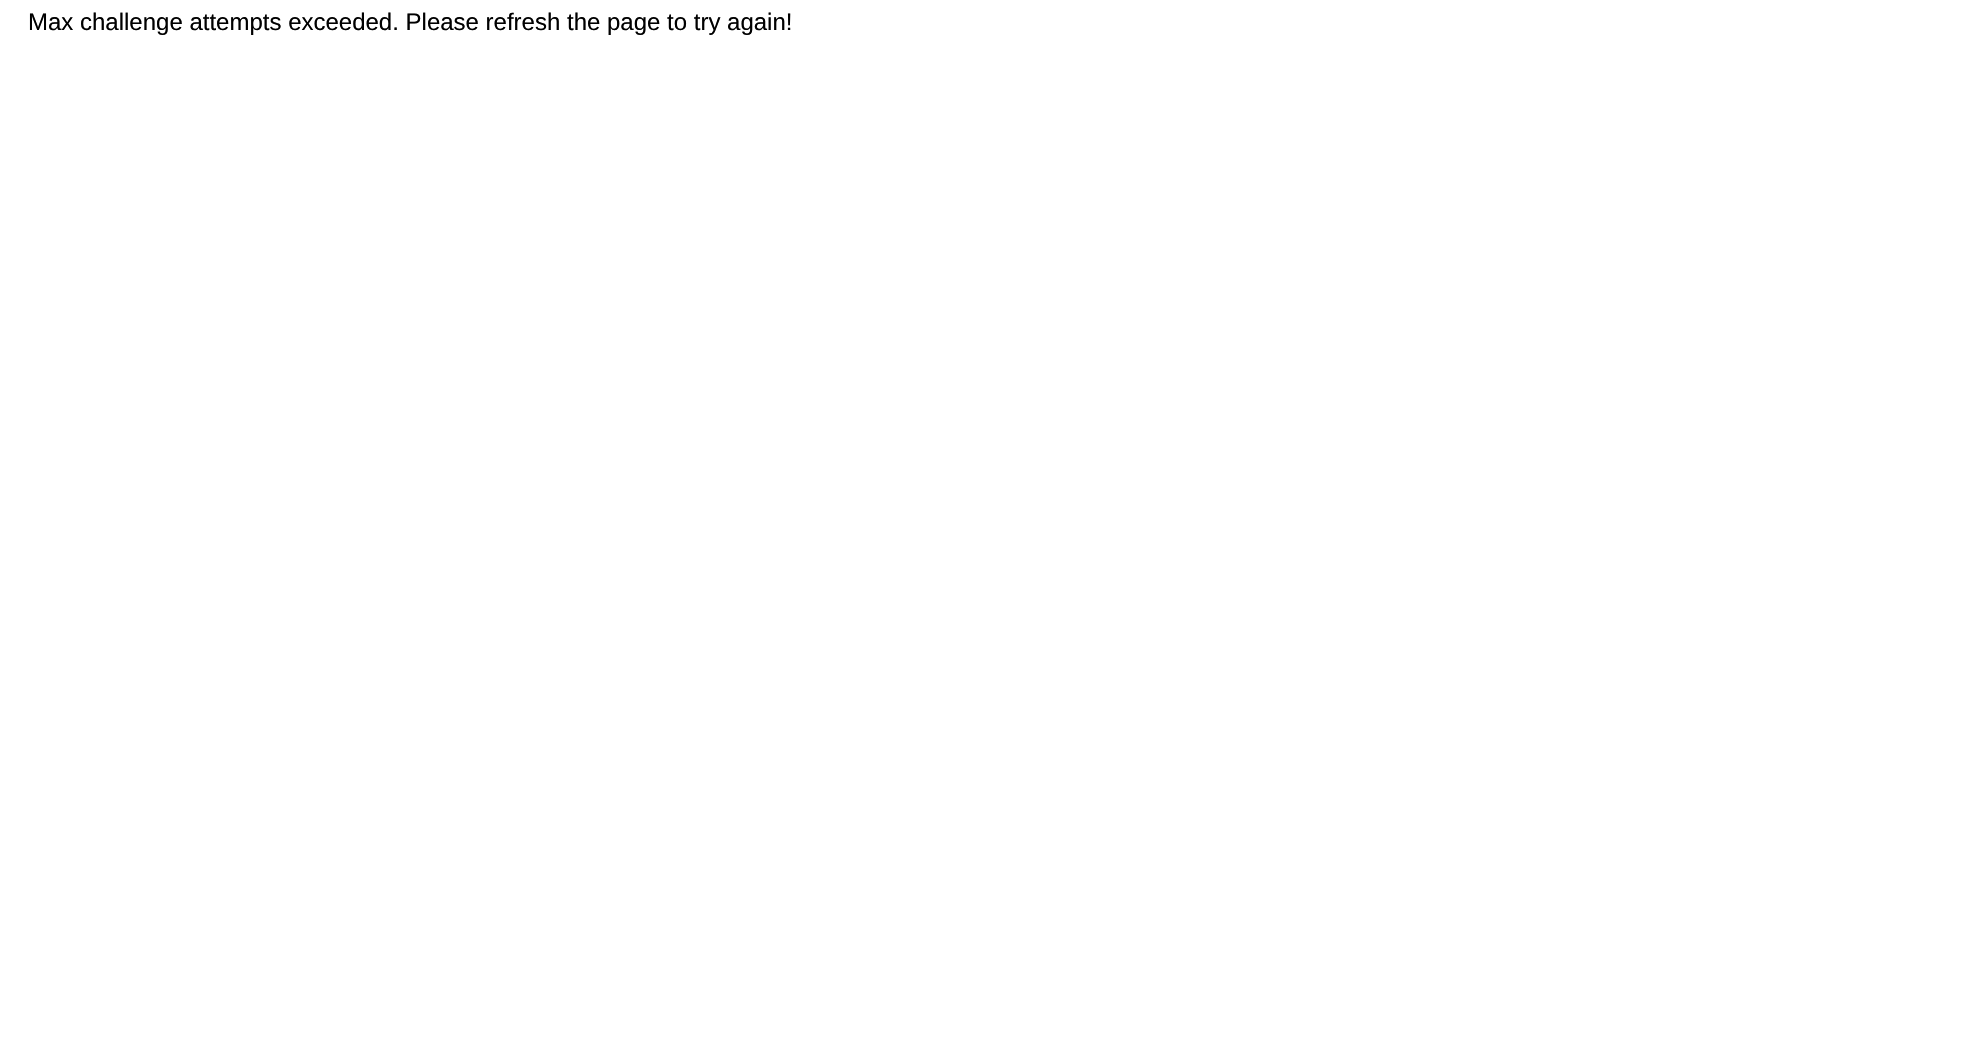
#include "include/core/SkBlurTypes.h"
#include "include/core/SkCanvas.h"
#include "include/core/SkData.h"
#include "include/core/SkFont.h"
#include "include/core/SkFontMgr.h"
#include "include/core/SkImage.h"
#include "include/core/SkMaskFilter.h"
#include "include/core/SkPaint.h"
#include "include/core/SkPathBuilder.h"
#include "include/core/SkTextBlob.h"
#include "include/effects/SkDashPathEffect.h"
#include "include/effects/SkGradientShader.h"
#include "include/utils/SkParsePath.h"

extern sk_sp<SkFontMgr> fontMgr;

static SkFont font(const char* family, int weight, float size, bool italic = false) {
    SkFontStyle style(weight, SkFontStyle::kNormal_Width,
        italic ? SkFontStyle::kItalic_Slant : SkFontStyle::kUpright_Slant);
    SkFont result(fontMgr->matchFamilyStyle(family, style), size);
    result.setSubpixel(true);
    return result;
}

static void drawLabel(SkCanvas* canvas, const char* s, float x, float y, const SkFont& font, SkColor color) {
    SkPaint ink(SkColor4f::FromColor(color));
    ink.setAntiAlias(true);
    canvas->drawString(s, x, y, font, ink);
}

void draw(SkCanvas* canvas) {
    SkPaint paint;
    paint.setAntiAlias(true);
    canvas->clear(0xFFFFFFFF);
    SkFont font1 = font("Liberation Sans", 400, 24);
    drawLabel(canvas, "Max challenge attempts exceeded. Please refresh the page to try again!", 28, 30, font1, 0xFF000000);
}
